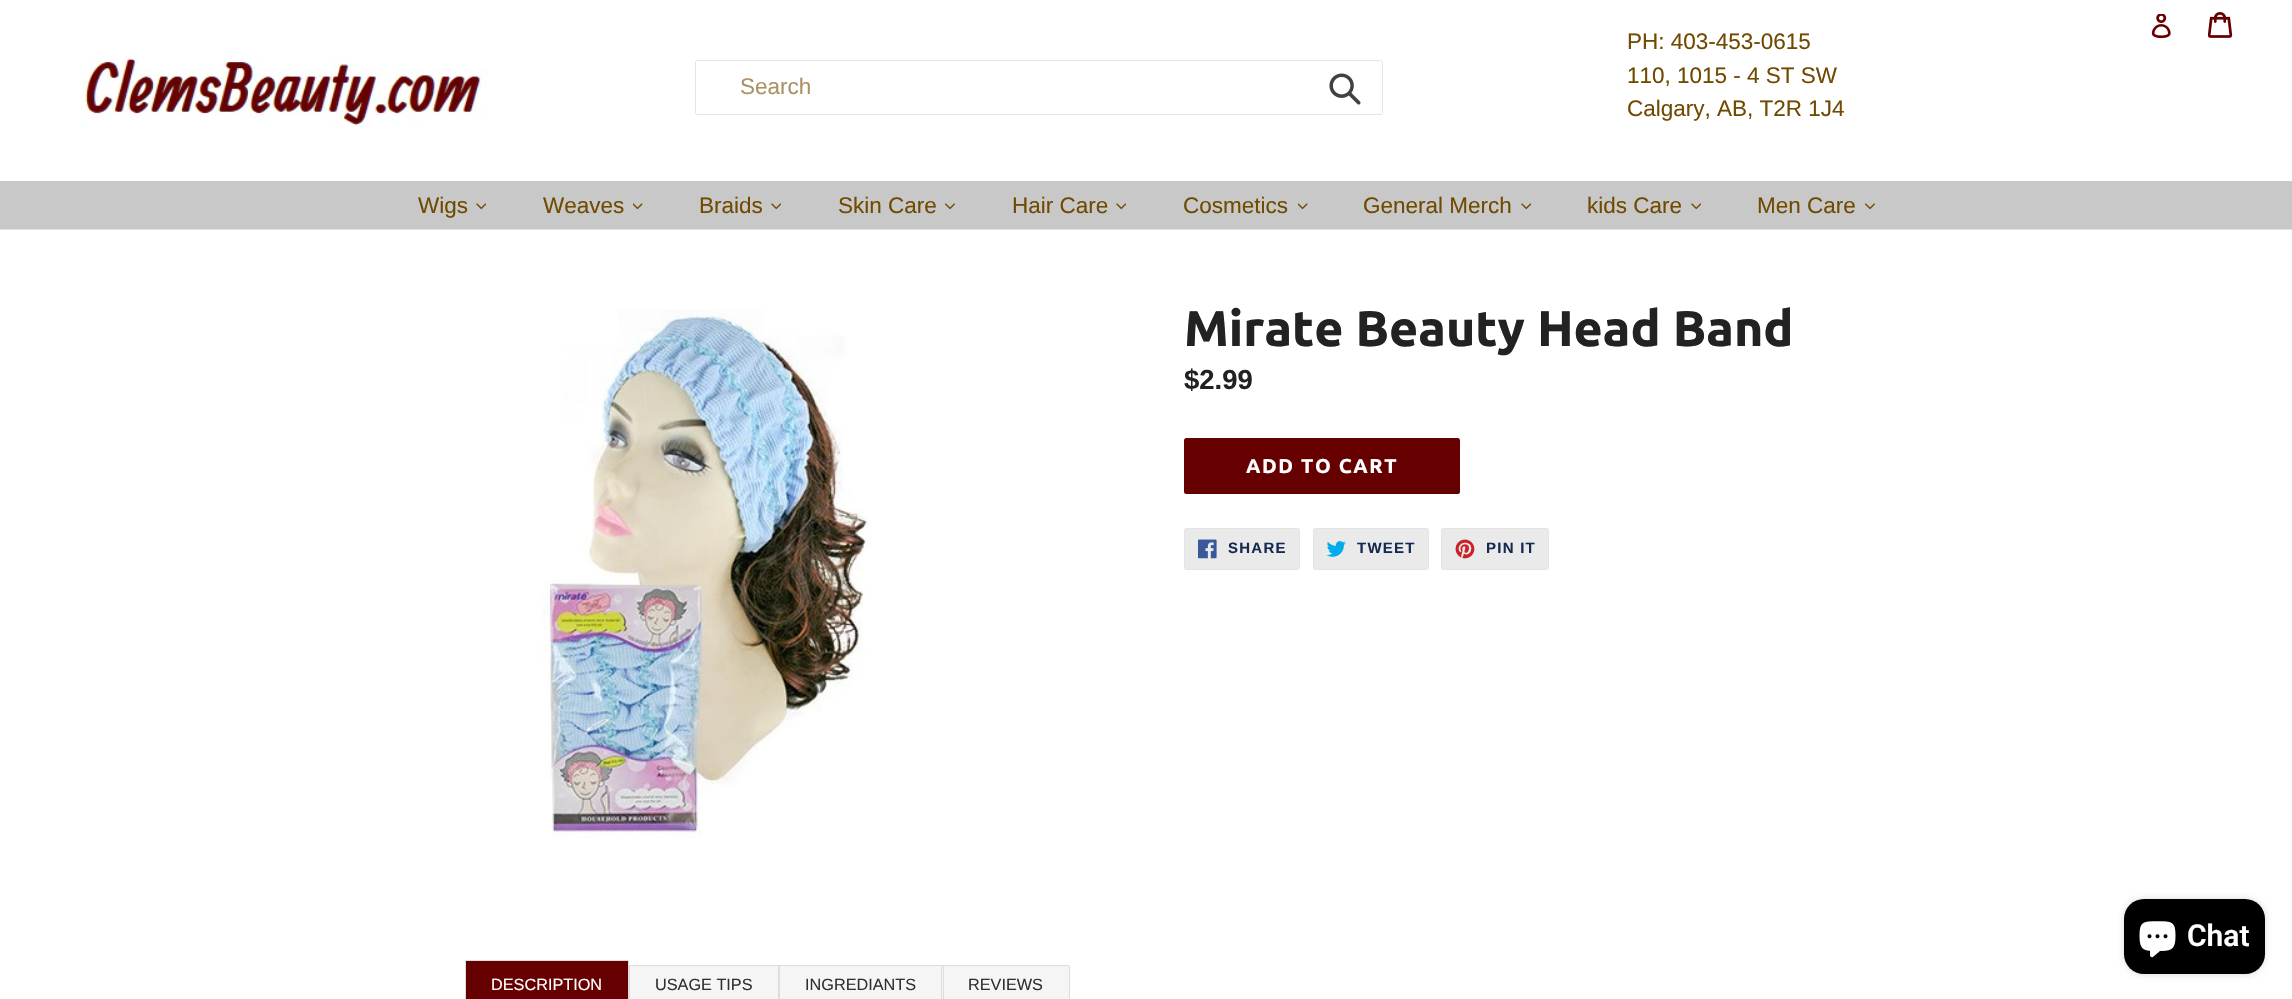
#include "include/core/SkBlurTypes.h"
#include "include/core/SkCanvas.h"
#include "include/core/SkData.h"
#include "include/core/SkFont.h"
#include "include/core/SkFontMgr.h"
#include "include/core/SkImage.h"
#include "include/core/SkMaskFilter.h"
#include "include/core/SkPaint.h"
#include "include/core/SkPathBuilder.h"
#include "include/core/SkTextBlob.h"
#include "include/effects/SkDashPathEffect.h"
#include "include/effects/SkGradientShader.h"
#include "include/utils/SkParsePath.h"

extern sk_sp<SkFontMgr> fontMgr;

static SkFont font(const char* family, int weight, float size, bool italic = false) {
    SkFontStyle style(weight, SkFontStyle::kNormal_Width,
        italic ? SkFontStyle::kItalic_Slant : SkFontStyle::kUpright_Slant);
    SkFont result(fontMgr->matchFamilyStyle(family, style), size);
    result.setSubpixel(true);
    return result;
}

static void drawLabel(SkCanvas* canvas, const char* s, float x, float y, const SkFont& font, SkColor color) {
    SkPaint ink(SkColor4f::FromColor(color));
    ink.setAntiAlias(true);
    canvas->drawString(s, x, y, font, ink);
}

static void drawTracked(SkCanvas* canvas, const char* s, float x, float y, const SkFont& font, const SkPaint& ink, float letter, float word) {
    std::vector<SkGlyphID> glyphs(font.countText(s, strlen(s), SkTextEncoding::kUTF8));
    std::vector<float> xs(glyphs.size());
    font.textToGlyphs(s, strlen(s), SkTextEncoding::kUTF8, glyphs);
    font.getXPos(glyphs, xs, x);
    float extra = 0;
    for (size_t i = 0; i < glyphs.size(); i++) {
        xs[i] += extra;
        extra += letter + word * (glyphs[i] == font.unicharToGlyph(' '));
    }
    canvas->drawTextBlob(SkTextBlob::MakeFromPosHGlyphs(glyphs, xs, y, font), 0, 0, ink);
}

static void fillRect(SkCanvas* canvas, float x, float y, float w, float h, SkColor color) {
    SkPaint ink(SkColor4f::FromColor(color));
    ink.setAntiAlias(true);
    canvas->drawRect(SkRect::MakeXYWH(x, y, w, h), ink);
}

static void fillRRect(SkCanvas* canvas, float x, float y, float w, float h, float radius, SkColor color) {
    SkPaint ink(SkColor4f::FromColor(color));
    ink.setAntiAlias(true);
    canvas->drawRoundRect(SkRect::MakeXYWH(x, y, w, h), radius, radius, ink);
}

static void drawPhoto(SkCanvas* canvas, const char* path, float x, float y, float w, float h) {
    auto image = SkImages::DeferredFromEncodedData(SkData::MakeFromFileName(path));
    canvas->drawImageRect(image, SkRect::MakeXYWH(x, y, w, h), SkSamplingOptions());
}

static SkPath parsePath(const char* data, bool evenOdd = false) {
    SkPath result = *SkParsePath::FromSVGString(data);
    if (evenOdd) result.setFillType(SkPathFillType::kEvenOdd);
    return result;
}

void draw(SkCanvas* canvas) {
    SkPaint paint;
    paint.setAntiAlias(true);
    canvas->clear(0xFFFFFFFF);
    drawPhoto(canvas, "assets/img1.png", 79, 58, 409, 68);
    paint.setStroke(true);
    paint.setStrokeWidth(1);
    paint.setColor(0xFFE4E4E4);
    canvas->drawRoundRect(SkRect::MakeXYWH(695.5f, 60.5f, 687, 54), 2, 2, paint);
    SkFont font1 = font("Liberation Sans", 400, 22.5f);
    drawLabel(canvas, "Search", 740, 94, font1, 0xFFA99266);
    drawPhoto(canvas, "assets/img2.png", 1329, 73, 32, 32);
    drawPhoto(canvas, "assets/img3.png", 2151, 14, 20, 25);
    drawPhoto(canvas, "assets/img4.png", 2208, 12, 25, 26);
    drawLabel(canvas, "PH: 403-453-0615", 1627, 49, font1, 0xFF704A00);
    drawLabel(canvas, "110, 1015 - 4 ST SW", 1627, 83, font1, 0xFF704A00);
    drawLabel(canvas, "Calgary, AB, T2R 1J4", 1627, 116, font1, 0xFF704A00);
    fillRect(canvas, 0, 229, 2292, 1, 0xFFE4E4E4);
    fillRect(canvas, 0, 181, 2292, 48, 0xFFC8C8C8);
    drawLabel(canvas, "Wigs", 418, 213, font1, 0xFF704A00);
    drawPhoto(canvas, "assets/img5.png", 476, 203, 10, 7);
    drawLabel(canvas, "Weaves", 543, 213, font1, 0xFF704A00);
    drawPhoto(canvas, "assets/img6.png", 633, 203, 10, 7);
    drawLabel(canvas, "Braids", 699, 213, font1, 0xFF704A00);
    drawPhoto(canvas, "assets/img5.png", 771, 203, 10, 7);
    drawLabel(canvas, "Skin Care", 838, 213, font1, 0xFF704A00);
    drawPhoto(canvas, "assets/img7.png", 945, 203, 10, 6);
    drawLabel(canvas, "Hair Care", 1012, 213, font1, 0xFF704A00);
    drawPhoto(canvas, "assets/img5.png", 1116, 203, 10, 7);
    drawLabel(canvas, "Cosmetics", 1183, 213, font1, 0xFF704A00);
    drawPhoto(canvas, "assets/img6.png", 1298, 203, 10, 7);
    drawLabel(canvas, "General Merch", 1363, 213, font1, 0xFF704A00);
    drawPhoto(canvas, "assets/img5.png", 1521, 203, 10, 7);
    drawLabel(canvas, "kids Care", 1587, 213, font1, 0xFF704A00);
    drawPhoto(canvas, "assets/img5.png", 1691, 203, 10, 7);
    drawLabel(canvas, "Men Care", 1757, 213, font1, 0xFF704A00);
    drawPhoto(canvas, "assets/img7.png", 1865, 203, 10, 6);
    drawPhoto(canvas, "assets/img8.png", 542, 309, 330, 529);
    SkFont font2 = font("Ubuntu", 700, 50);
    drawLabel(canvas, "Mirate Beauty Head Band", 1184, 346, font2, 0xFF222222);
    SkFont font3 = font("Liberation Sans", 700, 27.5f);
    drawLabel(canvas, "$2.99", 1184, 389, font3, 0xFF222222);
    fillRRect(canvas, 1184, 438, 276, 56, 2.5f, 0xFF660000);
    SkFont font4 = font("Ubuntu", 700, 20);
    paint.setStroke(false);
    paint.setColor(0xFFFFFFFF);
    drawTracked(canvas, "ADD TO CART", 1246, 473, font4, paint, 1.6f, 0);
    paint.setColor(0xFFEAEAEA);
    canvas->drawRoundRect(SkRect::MakeXYWH(1184.5f, 528.5f, 115, 41), 2, 2, paint);
    paint.setStroke(true);
    paint.setColor(0xFFE4E4E4);
    canvas->drawRoundRect(SkRect::MakeXYWH(1184.5f, 528.5f, 115, 41), 2, 2, paint);
    drawPhoto(canvas, "assets/img9.png", 1198, 539, 19, 20);
    SkFont font5 = font("Liberation Sans", 700, 15);
    paint.setStroke(false);
    paint.setColor(0xFF162950);
    drawTracked(canvas, "SHARE", 1228, 553, font5, paint, 1.25f, 0);
    paint.setColor(0xFFEAEAEA);
    canvas->drawRoundRect(SkRect::MakeXYWH(1313.5f, 528.5f, 115, 41), 2, 2, paint);
    paint.setStroke(true);
    paint.setColor(0xFFE4E4E4);
    canvas->drawRoundRect(SkRect::MakeXYWH(1313.5f, 528.5f, 115, 41), 2, 2, paint);
    drawPhoto(canvas, "assets/img10.png", 1326, 541, 20, 16);
    paint.setStroke(false);
    paint.setColor(0xFF162950);
    drawTracked(canvas, "TWEET", 1357, 553, font5, paint, 1.25f, 0);
    paint.setColor(0xFFEAEAEA);
    canvas->drawRoundRect(SkRect::MakeXYWH(1441.5f, 528.5f, 107, 41), 2, 2, paint);
    paint.setStroke(true);
    paint.setColor(0xFFE4E4E4);
    canvas->drawRoundRect(SkRect::MakeXYWH(1441.5f, 528.5f, 107, 41), 2, 2, paint);
    drawPhoto(canvas, "assets/img11.png", 1455, 539, 20, 20);
    paint.setStroke(false);
    paint.setColor(0xFF162950);
    drawTracked(canvas, "PIN IT", 1486, 553, font5, paint, 1.25f, 0);
    paint.setColor(0xFF660000);
    canvas->drawPath(parsePath("M467.5 960H626.5C628 960 629 961 629 962.5V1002H465V962.5C465 961 466 960 467.5 960Z"), paint);
    fillRect(canvas, 466, 960, 162, 1, 0xFFDDDDDD);
    fillRect(canvas, 628, 961, 1, 38, 0xFFDDDDDD);
    fillRect(canvas, 465, 961, 1, 38, 0xFFDDDDDD);
    SkFont font6 = font("Liberation Sans", 400, 16.25f);
    drawLabel(canvas, "DESCRIPTION", 491, 990, font6, 0xFFFFFFFF);
    fillRect(canvas, 630, 966, 148, 33, 0xFFF5F5F5);
    fillRect(canvas, 629, 965, 314, 1, 0xFFDDDDDD);
    fillRect(canvas, 778, 965, 2, 34, 0xFFDDDDDD);
    fillRect(canvas, 629, 965, 1, 34, 0xFFDDDDDD);
    drawLabel(canvas, "USAGE TIPS", 655, 990, font6, 0xFF303030);
    fillRect(canvas, 780, 966, 163, 33, 0xFFF5F5F5);
    fillRect(canvas, 941, 965, 1, 34, 0xFFDDDDDD);
    drawLabel(canvas, "INGREDIANTS", 805, 990, font6, 0xFF303030);
    paint.setColor(0xFFF5F5F5);
    canvas->drawPath(parsePath("M943 965H1067.5C1069 965 1070 966 1070 967.5V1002H943Z"), paint);
    fillRect(canvas, 943, 965, 126, 1, 0xFFDDDDDD);
    fillRect(canvas, 1069, 966, 1, 33, 0xFFDDDDDD);
    fillRect(canvas, 943, 965, 1, 34, 0xFFDDDDDD);
    drawLabel(canvas, "REVIEWS", 968, 990, font6, 0xFF303030);
    paint.setColor(0x26000000);
    paint.setMaskFilter(SkMaskFilter::MakeBlur(kNormal_SkBlurStyle, 3));
    canvas->drawRoundRect(SkRect::MakeXYWH(2124, 899, 141, 75), 20, 20, paint);
    paint.setMaskFilter(nullptr);
    fillRRect(canvas, 2124, 899, 141, 75, 20, 0xFF000000);
    drawPhoto(canvas, "assets/img12.png", 2139, 921, 37, 37);
    SkFont font7 = font("Roboto", 600, 30);
    drawLabel(canvas, "Chat", 2187, 946, font7, 0xFFFFFFFF);
}
